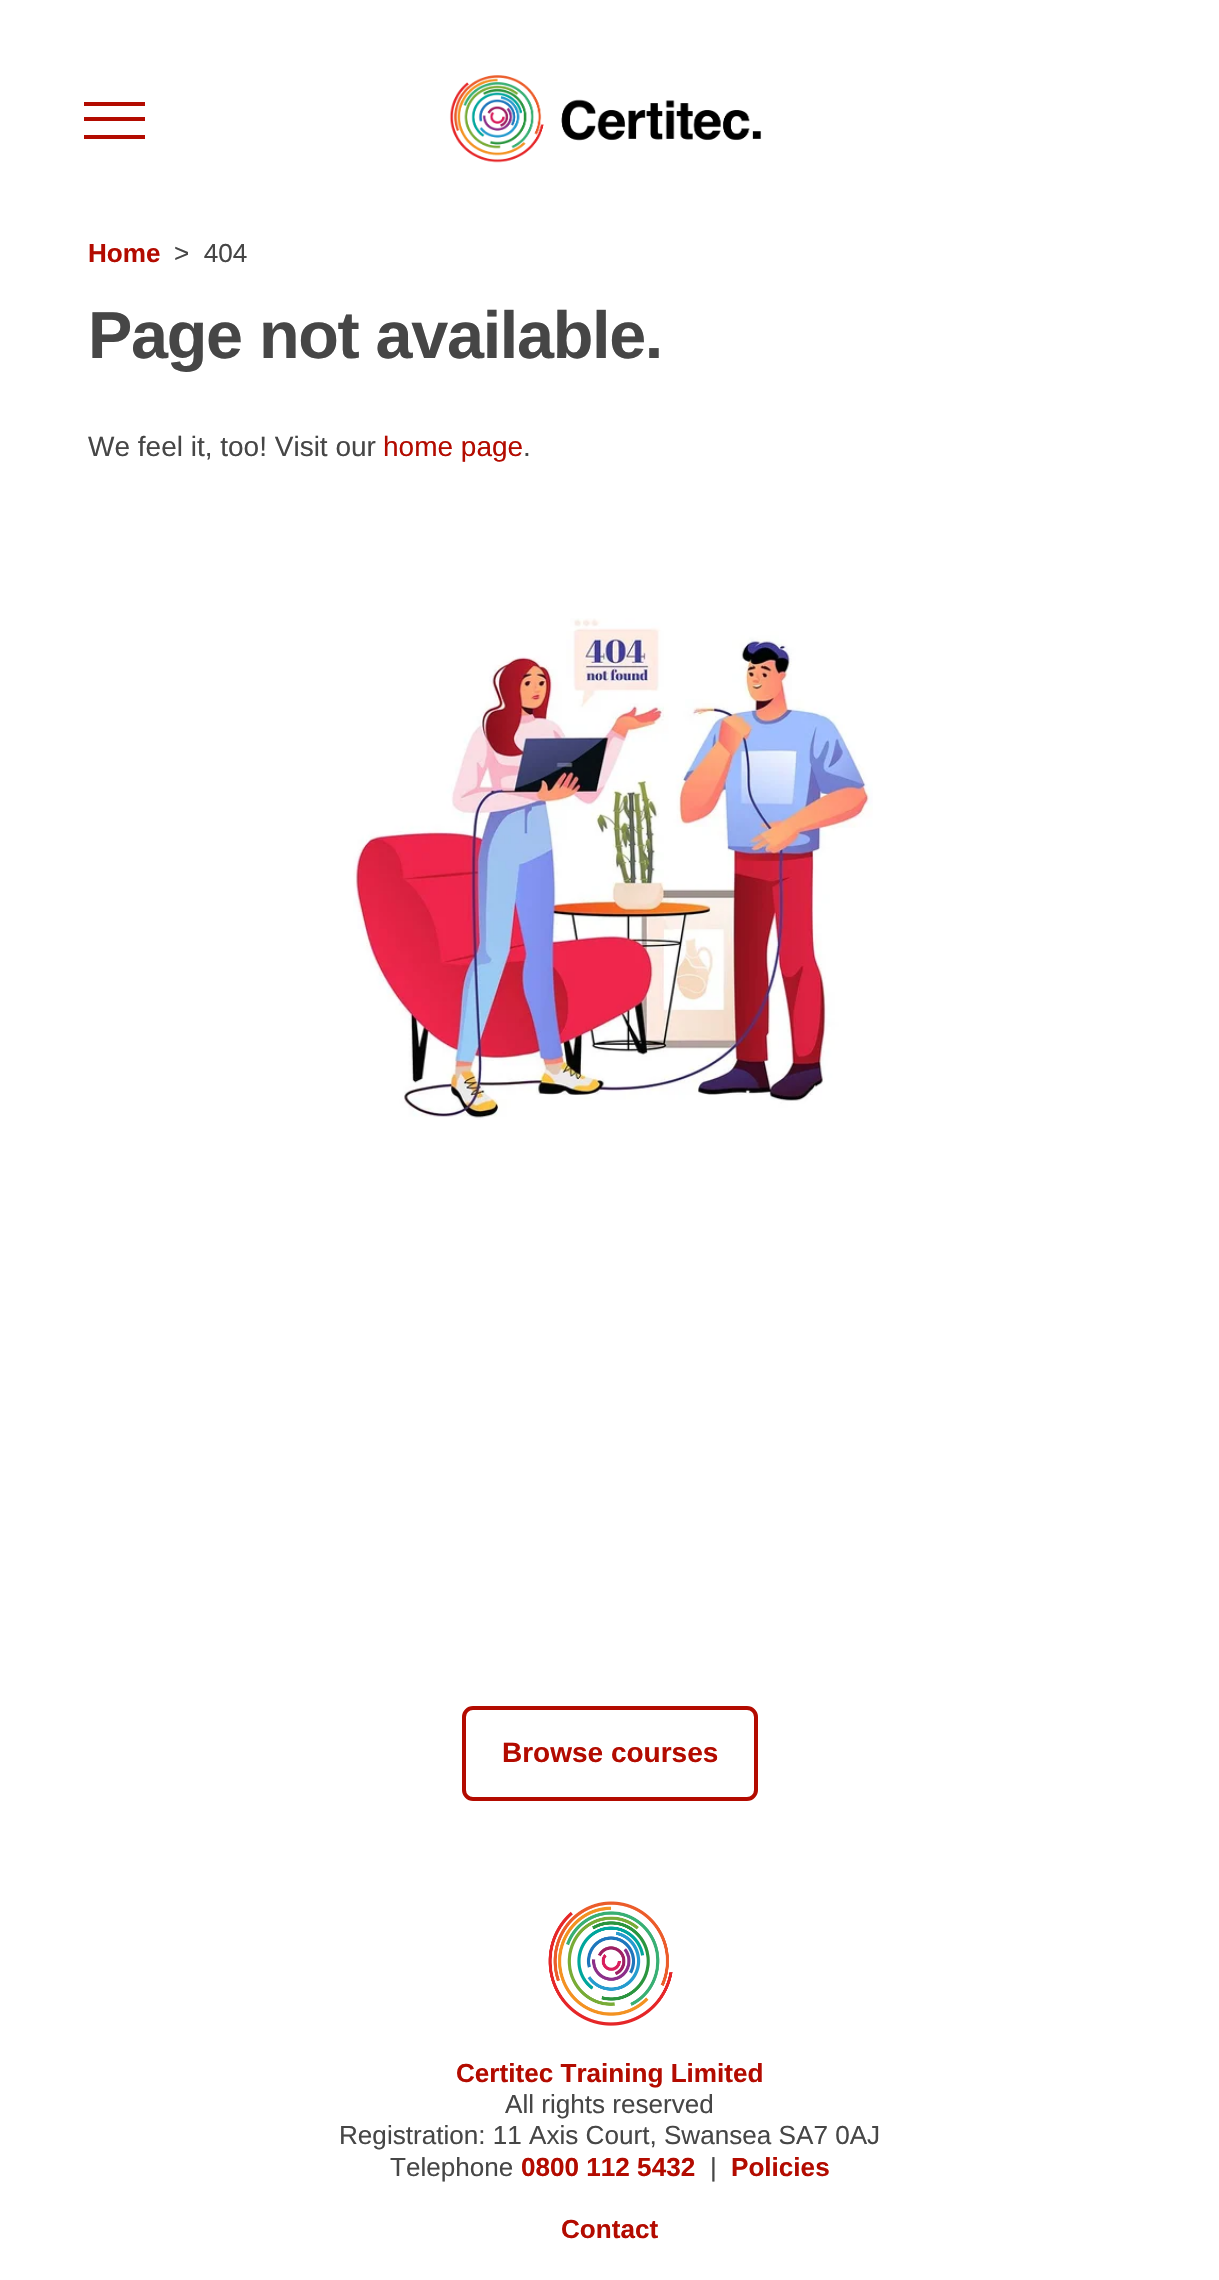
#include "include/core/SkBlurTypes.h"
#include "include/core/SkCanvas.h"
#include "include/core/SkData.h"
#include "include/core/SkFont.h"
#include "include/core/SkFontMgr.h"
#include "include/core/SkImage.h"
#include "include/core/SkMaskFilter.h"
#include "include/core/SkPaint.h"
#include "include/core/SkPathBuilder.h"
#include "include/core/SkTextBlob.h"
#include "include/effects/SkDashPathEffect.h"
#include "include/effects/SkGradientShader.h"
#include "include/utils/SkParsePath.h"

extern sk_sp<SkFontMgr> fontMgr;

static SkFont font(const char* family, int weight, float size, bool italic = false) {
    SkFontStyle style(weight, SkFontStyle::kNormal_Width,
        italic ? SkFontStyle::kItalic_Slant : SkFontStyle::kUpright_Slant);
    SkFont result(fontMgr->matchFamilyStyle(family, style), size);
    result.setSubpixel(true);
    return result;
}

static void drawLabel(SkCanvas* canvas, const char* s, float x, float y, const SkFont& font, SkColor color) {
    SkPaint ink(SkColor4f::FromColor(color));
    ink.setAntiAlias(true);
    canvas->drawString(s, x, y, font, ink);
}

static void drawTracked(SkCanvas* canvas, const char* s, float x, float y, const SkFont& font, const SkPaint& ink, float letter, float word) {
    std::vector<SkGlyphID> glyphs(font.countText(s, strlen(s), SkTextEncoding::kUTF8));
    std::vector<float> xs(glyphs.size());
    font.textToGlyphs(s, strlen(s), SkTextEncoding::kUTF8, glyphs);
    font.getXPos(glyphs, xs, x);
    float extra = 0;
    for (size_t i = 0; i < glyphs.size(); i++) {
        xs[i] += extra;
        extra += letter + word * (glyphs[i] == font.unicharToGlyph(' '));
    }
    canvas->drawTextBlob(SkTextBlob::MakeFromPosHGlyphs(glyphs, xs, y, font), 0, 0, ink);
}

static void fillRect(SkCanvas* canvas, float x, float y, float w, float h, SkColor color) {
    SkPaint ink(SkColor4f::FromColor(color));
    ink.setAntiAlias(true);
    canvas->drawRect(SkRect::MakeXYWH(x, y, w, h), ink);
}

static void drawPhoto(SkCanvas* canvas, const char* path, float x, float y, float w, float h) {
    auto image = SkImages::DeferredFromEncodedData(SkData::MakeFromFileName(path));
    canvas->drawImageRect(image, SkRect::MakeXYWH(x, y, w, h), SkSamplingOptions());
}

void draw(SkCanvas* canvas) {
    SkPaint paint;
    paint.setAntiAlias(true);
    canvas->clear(0xFFFFFFFF);
    fillRect(canvas, 84, 102, 61, 4, 0xFFB30B00);
    fillRect(canvas, 84, 117, 61, 4, 0xFFB30B00);
    fillRect(canvas, 84, 135, 61, 4, 0xFFB30B00);
    drawPhoto(canvas, "assets/img1.png", 449, 75, 313, 88);
    SkFont font1 = font("Liberation Sans", 700, 26.1f);
    drawLabel(canvas, "Home", 88, 262, font1, 0xFFB30B00);
    SkFont font2 = font("Liberation Sans", 400, 26.1f);
    drawLabel(canvas, ">  404", 174, 262, font2, 0xFF464646);
    SkFont font3 = font("Liberation Sans", 700, 66.5f);
    paint.setColor(0xFF464646);
    drawTracked(canvas, "Page not available.", 88, 358, font3, paint, -1.3f, 0);
    SkFont font4 = font("Liberation Sans", 400, 28);
    drawLabel(canvas, "We feel it, too! Visit our", 88, 456, font4, 0xFF464646);
    drawLabel(canvas, "home page", 383, 456, font4, 0xFFB30B00);
    drawLabel(canvas, ".", 523, 456, font4, 0xFF464646);
    drawPhoto(canvas, "assets/img2.png", 353, 618, 520, 502);
    paint.setStroke(true);
    paint.setStrokeWidth(4);
    paint.setColor(0xFFB30B00);
    canvas->drawRoundRect(SkRect::MakeXYWH(464, 1708, 292, 91), 9, 9, paint);
    SkFont font5 = font("Liberation Sans", 700, 28);
    drawLabel(canvas, "Browse courses", 502, 1762, font5, 0xFFB30B00);
    drawPhoto(canvas, "assets/img3.png", 548, 1901, 125, 125);
    drawLabel(canvas, "Certitec Training Limited", 456, 2082, font1, 0xFFB30B00);
    drawLabel(canvas, "All rights reserved", 505, 2113, font2, 0xFF464646);
    drawLabel(canvas, "Registration: 11 Axis Court, Swansea SA7 0AJ", 339, 2144, font2, 0xFF464646);
    drawLabel(canvas, "Telephone", 390, 2176, font2, 0xFF464646);
    drawLabel(canvas, "0800 112 5432", 521, 2176, font1, 0xFFB30B00);
    drawLabel(canvas, "|", 710, 2176, font2, 0xFF464646);
    drawLabel(canvas, "Policies", 731, 2176, font1, 0xFFB30B00);
    drawLabel(canvas, "Contact", 561, 2238, font1, 0xFFB30B00);
}
